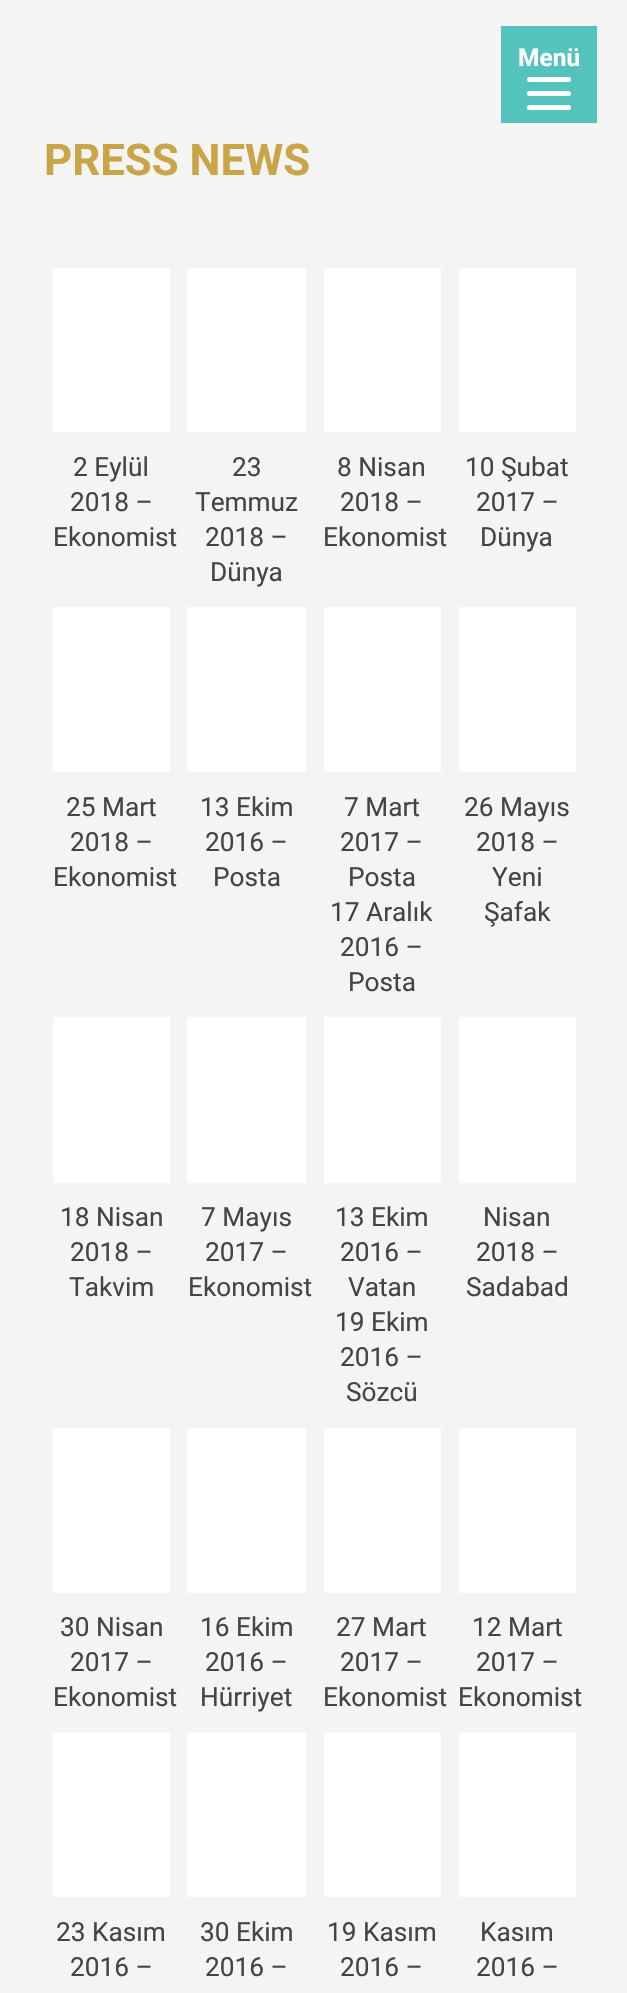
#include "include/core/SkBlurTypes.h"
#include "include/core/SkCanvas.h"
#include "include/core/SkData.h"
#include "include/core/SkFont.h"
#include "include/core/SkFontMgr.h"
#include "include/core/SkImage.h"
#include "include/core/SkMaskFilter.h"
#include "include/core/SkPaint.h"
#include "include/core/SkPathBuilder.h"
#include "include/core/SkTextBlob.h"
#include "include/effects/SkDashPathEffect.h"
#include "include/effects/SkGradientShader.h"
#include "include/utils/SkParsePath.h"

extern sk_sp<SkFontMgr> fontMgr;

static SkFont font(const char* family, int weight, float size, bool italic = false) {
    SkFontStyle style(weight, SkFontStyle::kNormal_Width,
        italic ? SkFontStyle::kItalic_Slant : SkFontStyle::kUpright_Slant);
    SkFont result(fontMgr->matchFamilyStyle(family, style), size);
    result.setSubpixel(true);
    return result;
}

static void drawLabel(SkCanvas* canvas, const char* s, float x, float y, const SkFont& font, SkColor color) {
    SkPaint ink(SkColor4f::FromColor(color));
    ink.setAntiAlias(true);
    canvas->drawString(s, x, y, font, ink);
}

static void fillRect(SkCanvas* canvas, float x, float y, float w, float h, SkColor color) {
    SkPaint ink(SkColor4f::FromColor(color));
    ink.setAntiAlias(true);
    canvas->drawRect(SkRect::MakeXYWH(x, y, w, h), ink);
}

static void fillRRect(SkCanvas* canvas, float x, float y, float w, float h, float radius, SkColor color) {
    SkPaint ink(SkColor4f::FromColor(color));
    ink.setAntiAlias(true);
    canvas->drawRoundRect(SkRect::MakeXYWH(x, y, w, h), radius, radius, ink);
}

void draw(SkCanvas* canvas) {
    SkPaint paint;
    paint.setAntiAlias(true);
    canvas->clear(0xFFF4F4F4);
    fillRect(canvas, 501, 26, 96, 97, 0xFF54C3BD);
    SkFont font1 = font("Roboto", 700, 24.5f);
    drawLabel(canvas, "Menü", 518, 66, font1, 0xFFFFFFFF);
    fillRRect(canvas, 527, 91, 44, 5, 2.5f, 0xFFFFFFFF);
    fillRRect(canvas, 527, 77, 44, 5, 2.5f, 0xFFFFFFFF);
    fillRRect(canvas, 527, 105, 44, 5, 2.5f, 0xFFFFFFFF);
    SkFont font2 = font("Roboto", 700, 43.75f);
    drawLabel(canvas, "PRESS NEWS", 44, 175, font2, 0xFFC8A648);
    fillRect(canvas, 53, 268, 117, 164, 0xFFFFFFFF);
    SkFont font3 = font("Roboto", 400, 26.25f);
    drawLabel(canvas, "2 Eylül", 73, 476, font3, 0xFF444444);
    drawLabel(canvas, "2018 –", 70, 511, font3, 0xFF444444);
    drawLabel(canvas, "Ekonomist", 53, 546, font3, 0xFF444444);
    fillRect(canvas, 187, 268, 119, 164, 0xFFFFFFFF);
    drawLabel(canvas, "23", 232, 476, font3, 0xFF444444);
    drawLabel(canvas, "Temmuz", 195, 511, font3, 0xFF444444);
    drawLabel(canvas, "2018 –", 205, 546, font3, 0xFF444444);
    drawLabel(canvas, "Dünya", 210, 581, font3, 0xFF444444);
    fillRect(canvas, 324, 268, 117, 164, 0xFFFFFFFF);
    drawLabel(canvas, "8 Nisan", 337, 476, font3, 0xFF444444);
    drawLabel(canvas, "2018 –", 340, 511, font3, 0xFF444444);
    drawLabel(canvas, "Ekonomist", 323, 546, font3, 0xFF444444);
    fillRect(canvas, 459, 268, 117, 164, 0xFFFFFFFF);
    drawLabel(canvas, "10 Şubat", 465, 476, font3, 0xFF444444);
    drawLabel(canvas, "2017 –", 476, 511, font3, 0xFF444444);
    drawLabel(canvas, "Dünya", 480, 546, font3, 0xFF444444);
    fillRect(canvas, 53, 607, 117, 165, 0xFFFFFFFF);
    drawLabel(canvas, "25 Mart", 66, 816, font3, 0xFF444444);
    drawLabel(canvas, "2018 –", 70, 851, font3, 0xFF444444);
    drawLabel(canvas, "Ekonomist", 53, 886, font3, 0xFF444444);
    fillRect(canvas, 187, 607, 119, 165, 0xFFFFFFFF);
    drawLabel(canvas, "13 Ekim", 200, 816, font3, 0xFF444444);
    drawLabel(canvas, "2016 –", 205, 851, font3, 0xFF444444);
    drawLabel(canvas, "Posta", 213, 886, font3, 0xFF444444);
    fillRect(canvas, 324, 607, 117, 165, 0xFFFFFFFF);
    drawLabel(canvas, "7 Mart", 344, 816, font3, 0xFF444444);
    drawLabel(canvas, "2017 –", 340, 851, font3, 0xFF444444);
    drawLabel(canvas, "Posta", 348, 886, font3, 0xFF444444);
    drawLabel(canvas, "17 Aralık", 330, 921, font3, 0xFF444444);
    drawLabel(canvas, "2016 –", 340, 956, font3, 0xFF444444);
    drawLabel(canvas, "Posta", 348, 991, font3, 0xFF444444);
    fillRect(canvas, 459, 607, 117, 165, 0xFFFFFFFF);
    drawLabel(canvas, "26 Mayıs", 464, 816, font3, 0xFF444444);
    drawLabel(canvas, "2018 –", 476, 851, font3, 0xFF444444);
    drawLabel(canvas, "Yeni", 492, 886, font3, 0xFF444444);
    drawLabel(canvas, "Şafak", 484, 921, font3, 0xFF444444);
    fillRect(canvas, 53, 1017, 117, 166, 0xFFFFFFFF);
    drawLabel(canvas, "18 Nisan", 60, 1226, font3, 0xFF444444);
    drawLabel(canvas, "2018 –", 70, 1261, font3, 0xFF444444);
    drawLabel(canvas, "Takvim", 69, 1296, font3, 0xFF444444);
    fillRect(canvas, 187, 1017, 119, 166, 0xFFFFFFFF);
    drawLabel(canvas, "7 Mayıs", 201, 1226, font3, 0xFF444444);
    drawLabel(canvas, "2017 –", 205, 1261, font3, 0xFF444444);
    drawLabel(canvas, "Ekonomist", 188, 1296, font3, 0xFF444444);
    fillRect(canvas, 324, 1017, 117, 166, 0xFFFFFFFF);
    drawLabel(canvas, "13 Ekim", 335, 1226, font3, 0xFF444444);
    drawLabel(canvas, "2016 –", 340, 1261, font3, 0xFF444444);
    drawLabel(canvas, "Vatan", 348, 1296, font3, 0xFF444444);
    drawLabel(canvas, "19 Ekim", 335, 1331, font3, 0xFF444444);
    drawLabel(canvas, "2016 –", 340, 1366, font3, 0xFF444444);
    drawLabel(canvas, "Sözcü", 346, 1401, font3, 0xFF444444);
    fillRect(canvas, 459, 1017, 117, 166, 0xFFFFFFFF);
    drawLabel(canvas, "Nisan", 483, 1226, font3, 0xFF444444);
    drawLabel(canvas, "2018 –", 476, 1261, font3, 0xFF444444);
    drawLabel(canvas, "Sadabad", 466, 1296, font3, 0xFF444444);
    fillRect(canvas, 53, 1428, 117, 165, 0xFFFFFFFF);
    drawLabel(canvas, "30 Nisan", 60, 1636, font3, 0xFF444444);
    drawLabel(canvas, "2017 –", 70, 1671, font3, 0xFF444444);
    drawLabel(canvas, "Ekonomist", 53, 1706, font3, 0xFF444444);
    fillRect(canvas, 187, 1428, 119, 165, 0xFFFFFFFF);
    drawLabel(canvas, "16 Ekim", 200, 1636, font3, 0xFF444444);
    drawLabel(canvas, "2016 –", 205, 1671, font3, 0xFF444444);
    drawLabel(canvas, "Hürriyet", 200, 1706, font3, 0xFF444444);
    fillRect(canvas, 324, 1428, 117, 165, 0xFFFFFFFF);
    drawLabel(canvas, "27 Mart", 336, 1636, font3, 0xFF444444);
    drawLabel(canvas, "2017 –", 340, 1671, font3, 0xFF444444);
    drawLabel(canvas, "Ekonomist", 323, 1706, font3, 0xFF444444);
    fillRect(canvas, 459, 1428, 117, 165, 0xFFFFFFFF);
    drawLabel(canvas, "12 Mart", 472, 1636, font3, 0xFF444444);
    drawLabel(canvas, "2017 –", 476, 1671, font3, 0xFF444444);
    drawLabel(canvas, "Ekonomist", 458, 1706, font3, 0xFF444444);
    fillRect(canvas, 53, 1733, 117, 164, 0xFFFFFFFF);
    drawLabel(canvas, "23 Kasım", 56, 1941, font3, 0xFF444444);
    drawLabel(canvas, "2016 –", 70, 1976, font3, 0xFF444444);
    fillRect(canvas, 187, 1733, 119, 164, 0xFFFFFFFF);
    drawLabel(canvas, "30 Ekim", 200, 1941, font3, 0xFF444444);
    drawLabel(canvas, "2016 –", 205, 1976, font3, 0xFF444444);
    fillRect(canvas, 324, 1733, 117, 164, 0xFFFFFFFF);
    drawLabel(canvas, "19 Kasım", 327, 1941, font3, 0xFF444444);
    drawLabel(canvas, "2016 –", 340, 1976, font3, 0xFF444444);
    fillRect(canvas, 459, 1733, 117, 164, 0xFFFFFFFF);
    drawLabel(canvas, "Kasım", 480, 1941, font3, 0xFF444444);
    drawLabel(canvas, "2016 –", 476, 1976, font3, 0xFF444444);
}
